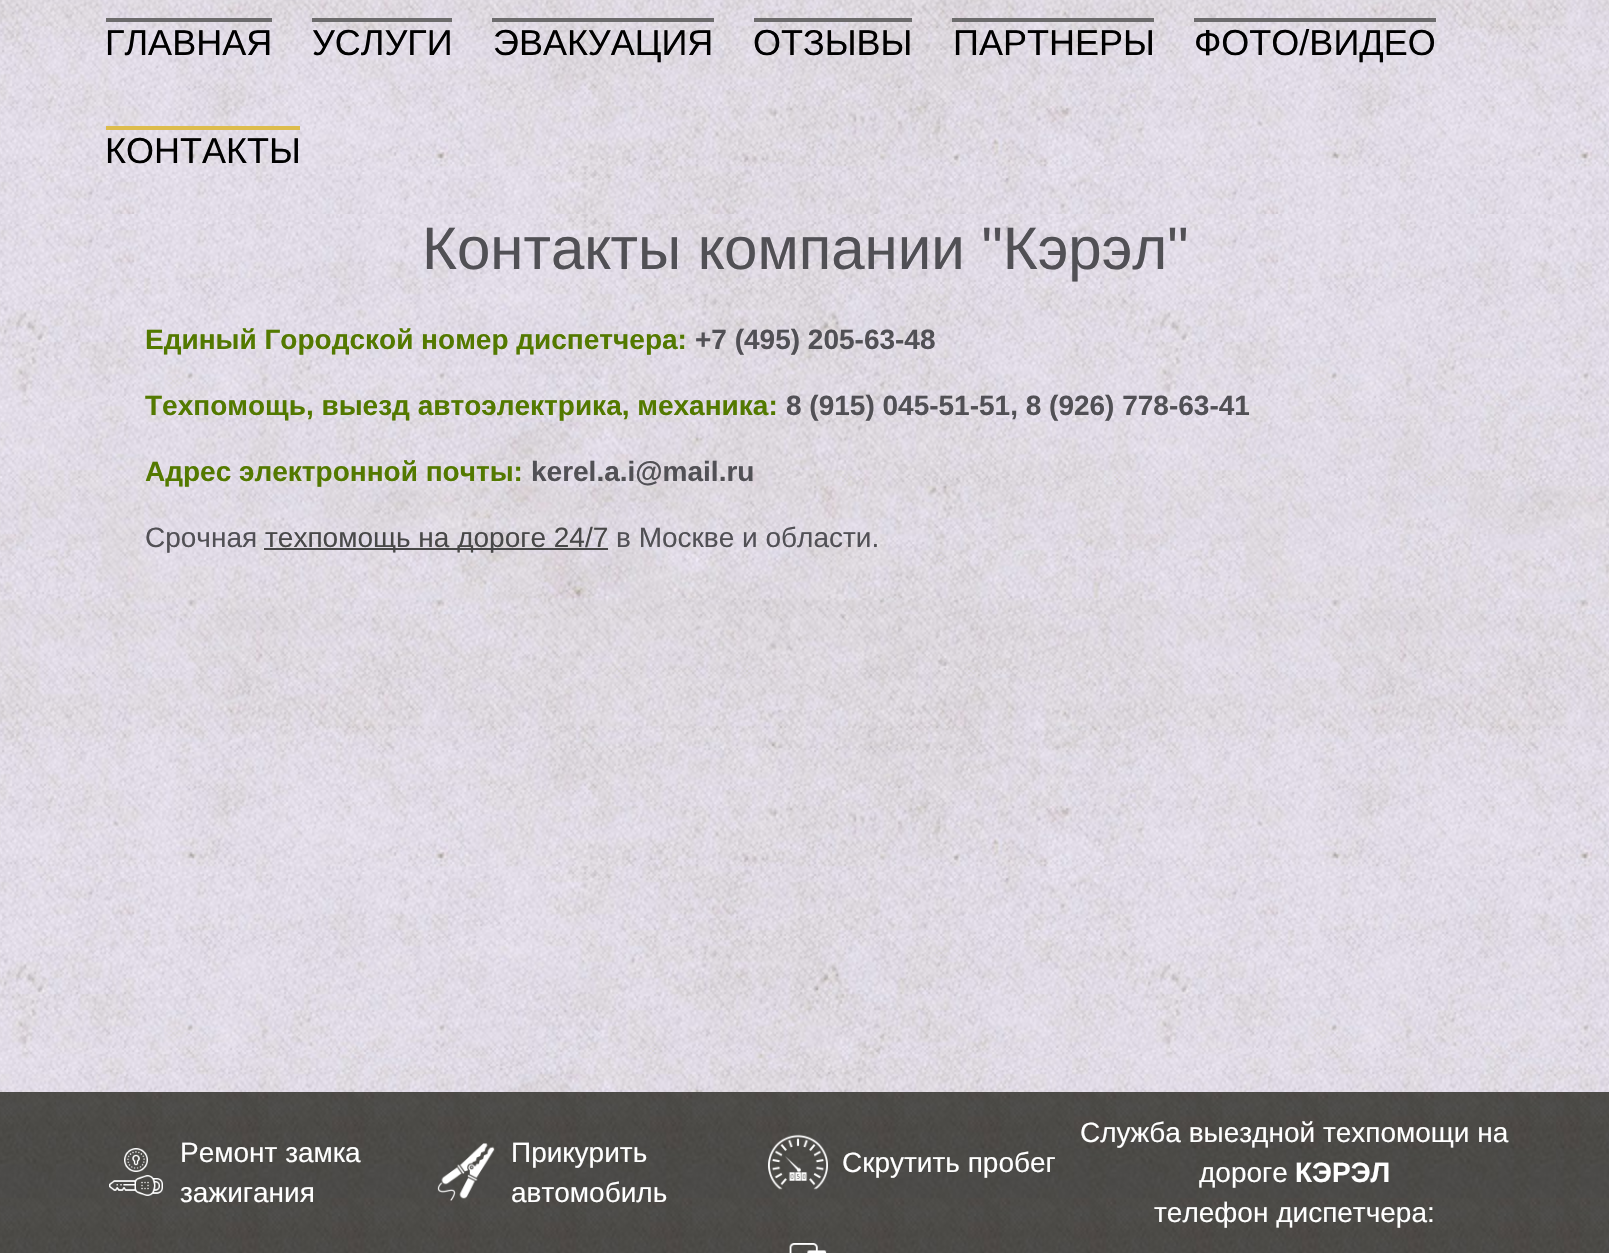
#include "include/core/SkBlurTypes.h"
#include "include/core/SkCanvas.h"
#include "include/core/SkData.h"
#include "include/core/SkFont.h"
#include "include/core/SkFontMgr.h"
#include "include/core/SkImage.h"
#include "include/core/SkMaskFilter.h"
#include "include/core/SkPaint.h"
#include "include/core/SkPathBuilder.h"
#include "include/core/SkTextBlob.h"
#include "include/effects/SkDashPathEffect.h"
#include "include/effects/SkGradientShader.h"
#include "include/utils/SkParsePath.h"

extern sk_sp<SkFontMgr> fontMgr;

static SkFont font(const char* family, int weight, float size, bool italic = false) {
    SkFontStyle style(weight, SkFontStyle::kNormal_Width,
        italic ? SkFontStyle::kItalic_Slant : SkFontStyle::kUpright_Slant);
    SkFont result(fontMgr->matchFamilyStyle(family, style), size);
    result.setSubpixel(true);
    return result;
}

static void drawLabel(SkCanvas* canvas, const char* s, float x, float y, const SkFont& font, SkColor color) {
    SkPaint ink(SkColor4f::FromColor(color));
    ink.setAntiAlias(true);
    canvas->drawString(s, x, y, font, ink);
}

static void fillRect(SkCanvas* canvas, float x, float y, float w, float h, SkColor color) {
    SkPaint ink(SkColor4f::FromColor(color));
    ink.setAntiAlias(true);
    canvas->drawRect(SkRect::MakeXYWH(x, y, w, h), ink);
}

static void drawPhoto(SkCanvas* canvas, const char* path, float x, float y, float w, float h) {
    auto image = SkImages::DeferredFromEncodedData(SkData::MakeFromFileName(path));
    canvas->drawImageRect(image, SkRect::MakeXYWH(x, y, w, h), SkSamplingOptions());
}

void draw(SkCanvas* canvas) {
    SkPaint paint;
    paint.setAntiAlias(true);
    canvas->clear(0xFFFFFFFF);
    drawPhoto(canvas, "assets/img1.png", 0, 0, 1609, 214);
    fillRect(canvas, 106, 18, 166, 4, 0xFF6C6B6C);
    SkFont font1 = font("Liberation Sans", 400, 36);
    drawLabel(canvas, "ГЛАВНАЯ", 105, 55, font1, 0xFF000000);
    fillRect(canvas, 312, 18, 140, 4, 0xFF6C6B6C);
    drawLabel(canvas, "УСЛУГИ", 312, 55, font1, 0xFF000000);
    fillRect(canvas, 492, 18, 222, 4, 0xFF6C6B6C);
    drawLabel(canvas, "ЭВАКУАЦИЯ", 493, 55, font1, 0xFF000000);
    fillRect(canvas, 754, 18, 158, 4, 0xFF6C6B6C);
    drawLabel(canvas, "ОТЗЫВЫ", 753, 55, font1, 0xFF000000);
    fillRect(canvas, 952, 18, 202, 4, 0xFF6C6B6C);
    drawLabel(canvas, "ПАРТНЕРЫ", 953, 55, font1, 0xFF000000);
    fillRect(canvas, 1194, 18, 242, 4, 0xFF6C6B6C);
    drawLabel(canvas, "ФОТО/ВИДЕО", 1194, 55, font1, 0xFF000000);
    fillRect(canvas, 106, 126, 194, 4, 0xFFDDBC4D);
    drawLabel(canvas, "КОНТАКТЫ", 105, 163, font1, 0xFF000000);
    drawPhoto(canvas, "assets/img2.png", 0, 214, 1609, 878);
    SkFont font2 = font("Liberation Sans", 400, 60);
    drawLabel(canvas, "Контакты компании \"Кэрэл\"", 422, 269, font2, 0xFF515055);
    SkFont font3 = font("Liberation Sans", 700, 28);
    drawLabel(canvas, "Единый Городской номер диспетчера:", 145, 349, font3, 0xFF537900);
    drawLabel(canvas, "+7 (495) 205-63-48", 695, 349, font3, 0xFF515055);
    drawLabel(canvas, "Техпомощь, выезд автоэлектрика, механика:", 145, 415, font3, 0xFF537900);
    drawLabel(canvas, "8 (915) 045-51-51, 8 (926) 778-63-41", 786, 415, font3, 0xFF515055);
    drawLabel(canvas, "Адрес электронной почты:", 145, 481, font3, 0xFF537900);
    drawLabel(canvas, "kerel.a.i@mail.ru", 531, 481, font3, 0xFF515055);
    SkFont font4 = font("Liberation Sans", 400, 28);
    drawLabel(canvas, "Срочная", 145, 547, font4, 0xFF515055);
    fillRect(canvas, 264, 548, 344, 2, 0xFF484848);
    drawLabel(canvas, "техпомощь на дороге 24/7", 265, 547, font4, 0xFF484848);
    drawLabel(canvas, "в Москве и области.", 616, 547, font4, 0xFF515055);
    drawPhoto(canvas, "assets/img3.png", 0, 1092, 1609, 161);
    drawPhoto(canvas, "assets/img4.png", 56, 1092, 1500, 161);
    drawPhoto(canvas, "assets/img5.png", 109, 1148, 54, 48);
    drawLabel(canvas, "Ремонт замка", 180, 1162, font4, 0xFFFFFFFF);
    drawLabel(canvas, "зажигания", 180, 1202, font4, 0xFFFFFFFF);
    drawPhoto(canvas, "assets/img6.png", 437, 1143, 58, 58);
    drawLabel(canvas, "Прикурить", 511, 1162, font4, 0xFFFFFFFF);
    drawLabel(canvas, "автомобиль", 511, 1202, font4, 0xFFFFFFFF);
    drawPhoto(canvas, "assets/img7.png", 768, 1134, 60, 56);
    drawLabel(canvas, "Скрутить пробег", 842, 1172, font4, 0xFFFFFFFF);
    drawPhoto(canvas, "assets/img8.png", 789, 1243, 38, 10);
    drawLabel(canvas, "Служба выездной техпомощи на", 1080, 1142, font4, 0xFFFFFFFF);
    drawLabel(canvas, "дороге", 1199, 1182, font4, 0xFFFFFFFF);
    drawLabel(canvas, "КЭРЭЛ", 1295, 1182, font3, 0xFFFFFFFF);
    drawLabel(canvas, "телефон диспетчера:", 1154, 1222, font4, 0xFFFFFFFF);
}
